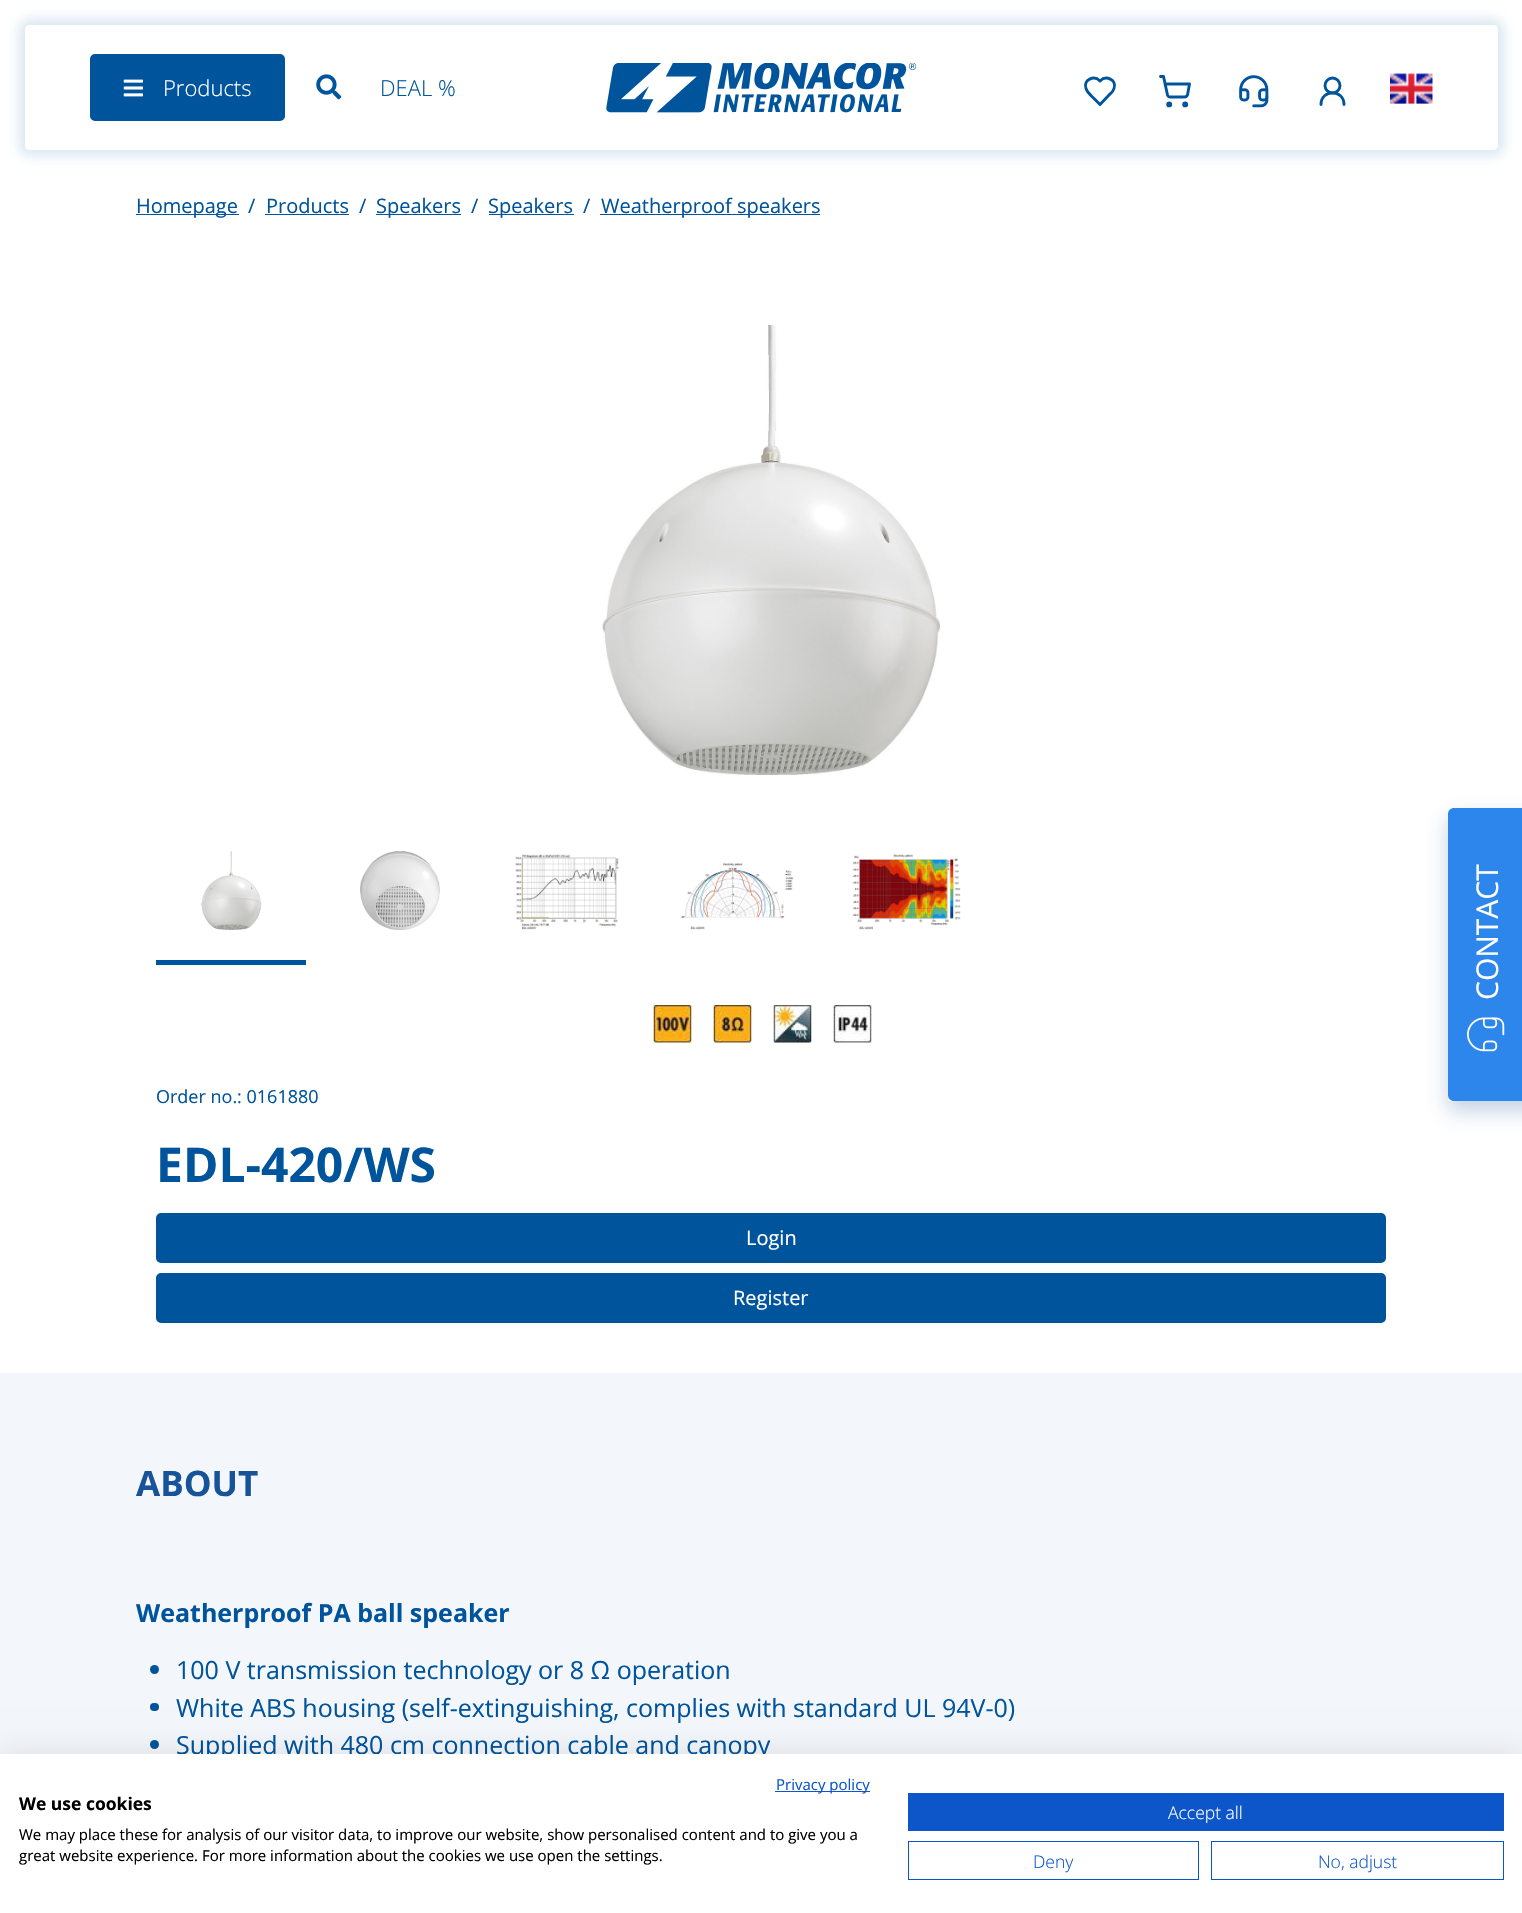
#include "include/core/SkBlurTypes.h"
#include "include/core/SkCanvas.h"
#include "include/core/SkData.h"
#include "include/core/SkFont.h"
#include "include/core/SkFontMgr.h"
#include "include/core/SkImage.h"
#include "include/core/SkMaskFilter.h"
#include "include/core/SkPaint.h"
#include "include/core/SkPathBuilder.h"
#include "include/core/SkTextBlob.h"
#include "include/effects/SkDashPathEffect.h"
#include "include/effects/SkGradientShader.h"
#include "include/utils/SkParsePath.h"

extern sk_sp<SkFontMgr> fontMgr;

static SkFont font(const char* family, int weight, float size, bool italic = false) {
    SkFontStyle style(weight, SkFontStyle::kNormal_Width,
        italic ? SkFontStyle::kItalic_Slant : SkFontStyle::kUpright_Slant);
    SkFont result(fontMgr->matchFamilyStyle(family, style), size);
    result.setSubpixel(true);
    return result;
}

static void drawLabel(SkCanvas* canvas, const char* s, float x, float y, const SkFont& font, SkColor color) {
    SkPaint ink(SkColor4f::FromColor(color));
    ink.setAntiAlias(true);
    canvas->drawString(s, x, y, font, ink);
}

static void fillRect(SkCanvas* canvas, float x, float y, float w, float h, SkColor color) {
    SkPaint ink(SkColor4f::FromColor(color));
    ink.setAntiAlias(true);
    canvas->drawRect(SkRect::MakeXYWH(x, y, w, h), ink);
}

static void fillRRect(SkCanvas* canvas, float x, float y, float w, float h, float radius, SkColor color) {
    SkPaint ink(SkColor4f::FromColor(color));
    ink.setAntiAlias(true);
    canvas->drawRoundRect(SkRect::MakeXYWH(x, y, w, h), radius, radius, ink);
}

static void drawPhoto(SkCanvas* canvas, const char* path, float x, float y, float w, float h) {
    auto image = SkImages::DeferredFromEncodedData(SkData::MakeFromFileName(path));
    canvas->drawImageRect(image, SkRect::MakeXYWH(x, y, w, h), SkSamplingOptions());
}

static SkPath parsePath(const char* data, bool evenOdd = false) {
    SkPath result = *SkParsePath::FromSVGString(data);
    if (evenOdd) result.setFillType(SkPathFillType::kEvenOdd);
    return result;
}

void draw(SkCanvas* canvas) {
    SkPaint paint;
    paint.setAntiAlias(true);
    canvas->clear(0xFFFFFFFF);
    canvas->save();
    canvas->clipPath(parsePath("M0 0H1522V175H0ZM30 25H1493C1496 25 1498 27 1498 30V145C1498 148 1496 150 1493 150H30C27 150 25 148 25 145V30C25 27 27 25 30 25Z", true), true);
    paint.setColor(0x2400549C);
    paint.setMaskFilter(SkMaskFilter::MakeBlur(kNormal_SkBlurStyle, 6));
    canvas->drawRoundRect(SkRect::MakeXYWH(19, 19, 1485, 137), 11, 11, paint);
    paint.setMaskFilter(nullptr);
    canvas->restore();
    paint.setColor(0xFF00549C);
    canvas->drawRoundRect(SkRect::MakeXYWH(91.5f, 55.5f, 192, 64), 3.5f, 3.5f, paint);
    paint.setStroke(true);
    paint.setStrokeWidth(3);
    canvas->drawRoundRect(SkRect::MakeXYWH(91.5f, 55.5f, 192, 64), 3.5f, 3.5f, paint);
    drawPhoto(canvas, "assets/img1.png", 123, 79, 20, 18);
    SkFont font1 = font("Open Sans", 300, 22);
    drawLabel(canvas, "Products", 163, 96, font1, 0xFFFFFFFF);
    drawPhoto(canvas, "assets/img2.png", 316, 74, 26, 26);
    drawLabel(canvas, "DEAL %", 380, 96, font1, 0xFF00549C);
    drawPhoto(canvas, "assets/img3.png", 606, 63, 310, 50);
    paint.setStrokeWidth(2.9f);
    paint.setStrokeCap(SkPaint::kRound_Cap);
    paint.setStrokeJoin(SkPaint::kRound_Join);
    canvas->drawPath(parsePath("M1110 94C1112 92.5 1113.5 90.5 1114 88.5C1117 79.5 1106 75 1100 81C1094 75 1083 79.5 1086 88.5C1087 92 1090.5 95 1093 97.5L1100 104.5Z"), paint);
    canvas->drawPath(parsePath("M1160.5 76.5H1163.5L1167.5 95C1167.5 96 1169 97 1170 97H1184.5C1186 97 1187 96 1187.5 95L1189.5 84H1165"), paint);
    paint.setStrokeCap(SkPaint::kButt_Cap);
    paint.setStrokeJoin(SkPaint::kMiter_Join);
    canvas->drawCircle(1169.2f, 104.4f, 1.5f, paint);
    canvas->drawCircle(1185.2f, 104.4f, 1.5f, paint);
    drawPhoto(canvas, "assets/img4.png", 1239, 75, 30, 33);
    canvas->drawCircle(1332.5f, 85.5f, 7.5f, paint);
    paint.setStrokeCap(SkPaint::kRound_Cap);
    paint.setStrokeJoin(SkPaint::kRound_Join);
    canvas->drawPath(parsePath("M1344 104.5C1344 89 1321 89 1321 104.5"), paint);
    drawPhoto(canvas, "assets/img5.png", 1390, 73, 43, 31);
    fillRect(canvas, 136, 214, 103, 1, 0xFF00549C);
    SkFont font2 = font("Open Sans", 400, 20);
    drawLabel(canvas, "Homepage", 136, 213, font2, 0xFF00549C);
    drawLabel(canvas, "/", 248, 213, font2, 0xFF00549C);
    drawLabel(canvas, "Products", 266, 213, font2, 0xFF00549C);
    fillRect(canvas, 265, 214, 84, 1, 0xFF00549C);
    drawLabel(canvas, "/", 359, 213, font2, 0xFF00549C);
    fillRect(canvas, 376, 214, 85, 1, 0xFF00549C);
    drawLabel(canvas, "Speakers", 376, 213, font2, 0xFF00549C);
    drawLabel(canvas, "/", 471, 213, font2, 0xFF00549C);
    fillRect(canvas, 489, 214, 85, 1, 0xFF00549C);
    drawLabel(canvas, "Speakers", 488, 213, font2, 0xFF00549C);
    drawLabel(canvas, "/", 583, 213, font2, 0xFF00549C);
    fillRect(canvas, 600, 214, 220, 1, 0xFF00549C);
    drawLabel(canvas, "Weatherproof speakers", 601, 213, font2, 0xFF00549C);
    drawPhoto(canvas, "assets/img6.png", 602, 325, 338, 450);
    fillRect(canvas, 156, 960, 150, 5, 0xFF00549C);
    drawPhoto(canvas, "assets/img7.png", 201, 851, 61, 79);
    drawPhoto(canvas, "assets/img8.png", 360, 851, 80, 79);
    drawPhoto(canvas, "assets/img9.png", 515, 854, 104, 76);
    drawPhoto(canvas, "assets/img10.png", 681, 862, 113, 68);
    drawPhoto(canvas, "assets/img11.png", 852, 854, 109, 76);
    drawPhoto(canvas, "assets/img12.png", 653, 1005, 39, 38);
    drawPhoto(canvas, "assets/img13.png", 713, 1005, 39, 38);
    drawPhoto(canvas, "assets/img14.png", 773, 1005, 39, 38);
    drawPhoto(canvas, "assets/img15.png", 833, 1005, 39, 38);
    SkFont font3 = font("Open Sans", 400, 18);
    drawLabel(canvas, "Order no.: 0161880", 156, 1103, font3, 0xFF00549C);
    SkFont font4 = font("Open Sans", 700, 48);
    drawLabel(canvas, "EDL-420/WS", 156, 1182, font4, 0xFF00549C);
    paint.setStroke(false);
    canvas->drawRoundRect(SkRect::MakeXYWH(157.5f, 1214.5f, 1227, 47), 3.5f, 3.5f, paint);
    paint.setStroke(true);
    paint.setStrokeWidth(3);
    paint.setStrokeCap(SkPaint::kButt_Cap);
    paint.setStrokeJoin(SkPaint::kMiter_Join);
    canvas->drawRoundRect(SkRect::MakeXYWH(157.5f, 1214.5f, 1227, 47), 3.5f, 3.5f, paint);
    drawLabel(canvas, "Login", 746, 1245, font2, 0xFFFFFFFF);
    paint.setStroke(false);
    canvas->drawRoundRect(SkRect::MakeXYWH(157.5f, 1274.5f, 1227, 47), 3.5f, 3.5f, paint);
    paint.setStroke(true);
    canvas->drawRoundRect(SkRect::MakeXYWH(157.5f, 1274.5f, 1227, 47), 3.5f, 3.5f, paint);
    drawLabel(canvas, "Register", 733, 1305, font2, 0xFFFFFFFF);
    fillRect(canvas, 0, 1373, 1522, 381, 0xFFF3F6FA);
    SkFont font5 = font("Open Sans", 700, 35);
    drawLabel(canvas, "ABOUT", 136, 1496, font5, 0xFF175399);
    SkFont font6 = font("Open Sans", 700, 25);
    drawLabel(canvas, "Weatherproof PA ball speaker", 136, 1622, font6, 0xFF00549C);
    paint.setStroke(false);
    canvas->drawCircle(154.5f, 1669.5f, 4.5f, paint);
    SkFont font7 = font("Open Sans", 400, 25);
    drawLabel(canvas, "100 V transmission technology or 8 Ω operation", 176, 1679, font7, 0xFF00549C);
    fillRRect(canvas, 150, 1703, 9, 8, 4, 0xFF00549C);
    drawLabel(canvas, "White ABS housing (self-extinguishing, complies with standard UL 94V-0)", 176, 1717, font7, 0xFF00549C);
    canvas->drawCircle(154.5f, 1744.5f, 4.5f, paint);
    drawLabel(canvas, "Supplied with 480 cm connection cable and canopy", 176, 1754, font7, 0xFF00549C);
    canvas->save();
    canvas->clipPath(parsePath("M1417 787H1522V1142H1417ZM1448 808H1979V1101H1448Z", true), true);
    paint.setColor(0x42175399);
    paint.setMaskFilter(SkMaskFilter::MakeBlur(kNormal_SkBlurStyle, 10));
    canvas->drawRect(SkRect::MakeXYWH(1448, 818, 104, 293), paint);
    paint.setMaskFilter(nullptr);
    canvas->restore();
    paint.setColor(0xFF2D86EB);
    canvas->drawPath(parsePath("M1454 808H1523V1101H1454C1450.5 1101 1448 1098.5 1448 1095V814C1448 810.5 1450.5 808 1454 808Z"), paint);
    SkFont font8 = font("Open Sans", 400, 30);
    canvas->save();
    canvas->rotate(-90, 1498, 1000);
    drawLabel(canvas, "CONTACT", 1498, 1000, font8, 0xFFFFFFFF);
    canvas->restore();
    drawPhoto(canvas, "assets/img16.png", 1467, 1017, 38, 35);
    paint.setColor(0x1A000000);
    paint.setMaskFilter(SkMaskFilter::MakeBlur(kNormal_SkBlurStyle, 15));
    canvas->drawRect(SkRect::MakeXYWH(0, 1754, 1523, 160), paint);
    paint.setMaskFilter(nullptr);
    fillRect(canvas, 0, 1754, 1522, 159, 0xFFFFFFFF);
    fillRect(canvas, 775, 1791, 95, 1, 0xFF0D56C9);
    SkFont font9 = font("Open Sans", 400, 15);
    drawLabel(canvas, "Privacy policy", 776, 1790, font9, 0xFF0D56C9);
    SkFont font10 = font("Open Sans", 700, 17.5f);
    drawLabel(canvas, "We use cookies", 19, 1810, font10, 0xFF000000);
    drawLabel(canvas, "We may place these for analysis of our visitor data, to improve our website, show personalised content and to give you a", 19, 1840, font9, 0xFF000000);
    drawLabel(canvas, "great website experience. For more information about the cookies we use open the settings.", 19, 1861, font9, 0xFF000000);
    fillRect(canvas, 908, 1793, 596, 38, 0xFF0D56C9);
    SkFont font11 = font("Open Sans", 300, 17.5f);
    drawLabel(canvas, "Accept all", 1168, 1819, font11, 0xFFFFFFFF);
    paint.setStroke(true);
    paint.setStrokeWidth(1);
    paint.setColor(0xFF0D56C9);
    canvas->drawRect(SkRect::MakeXYWH(908.5f, 1841.5f, 290, 38), paint);
    drawLabel(canvas, "Deny", 1033, 1868, font11, 0xFF0D56C9);
    canvas->drawRect(SkRect::MakeXYWH(1211.5f, 1841.5f, 292, 38), paint);
    drawLabel(canvas, "No, adjust", 1318, 1868, font11, 0xFF0D56C9);
}
